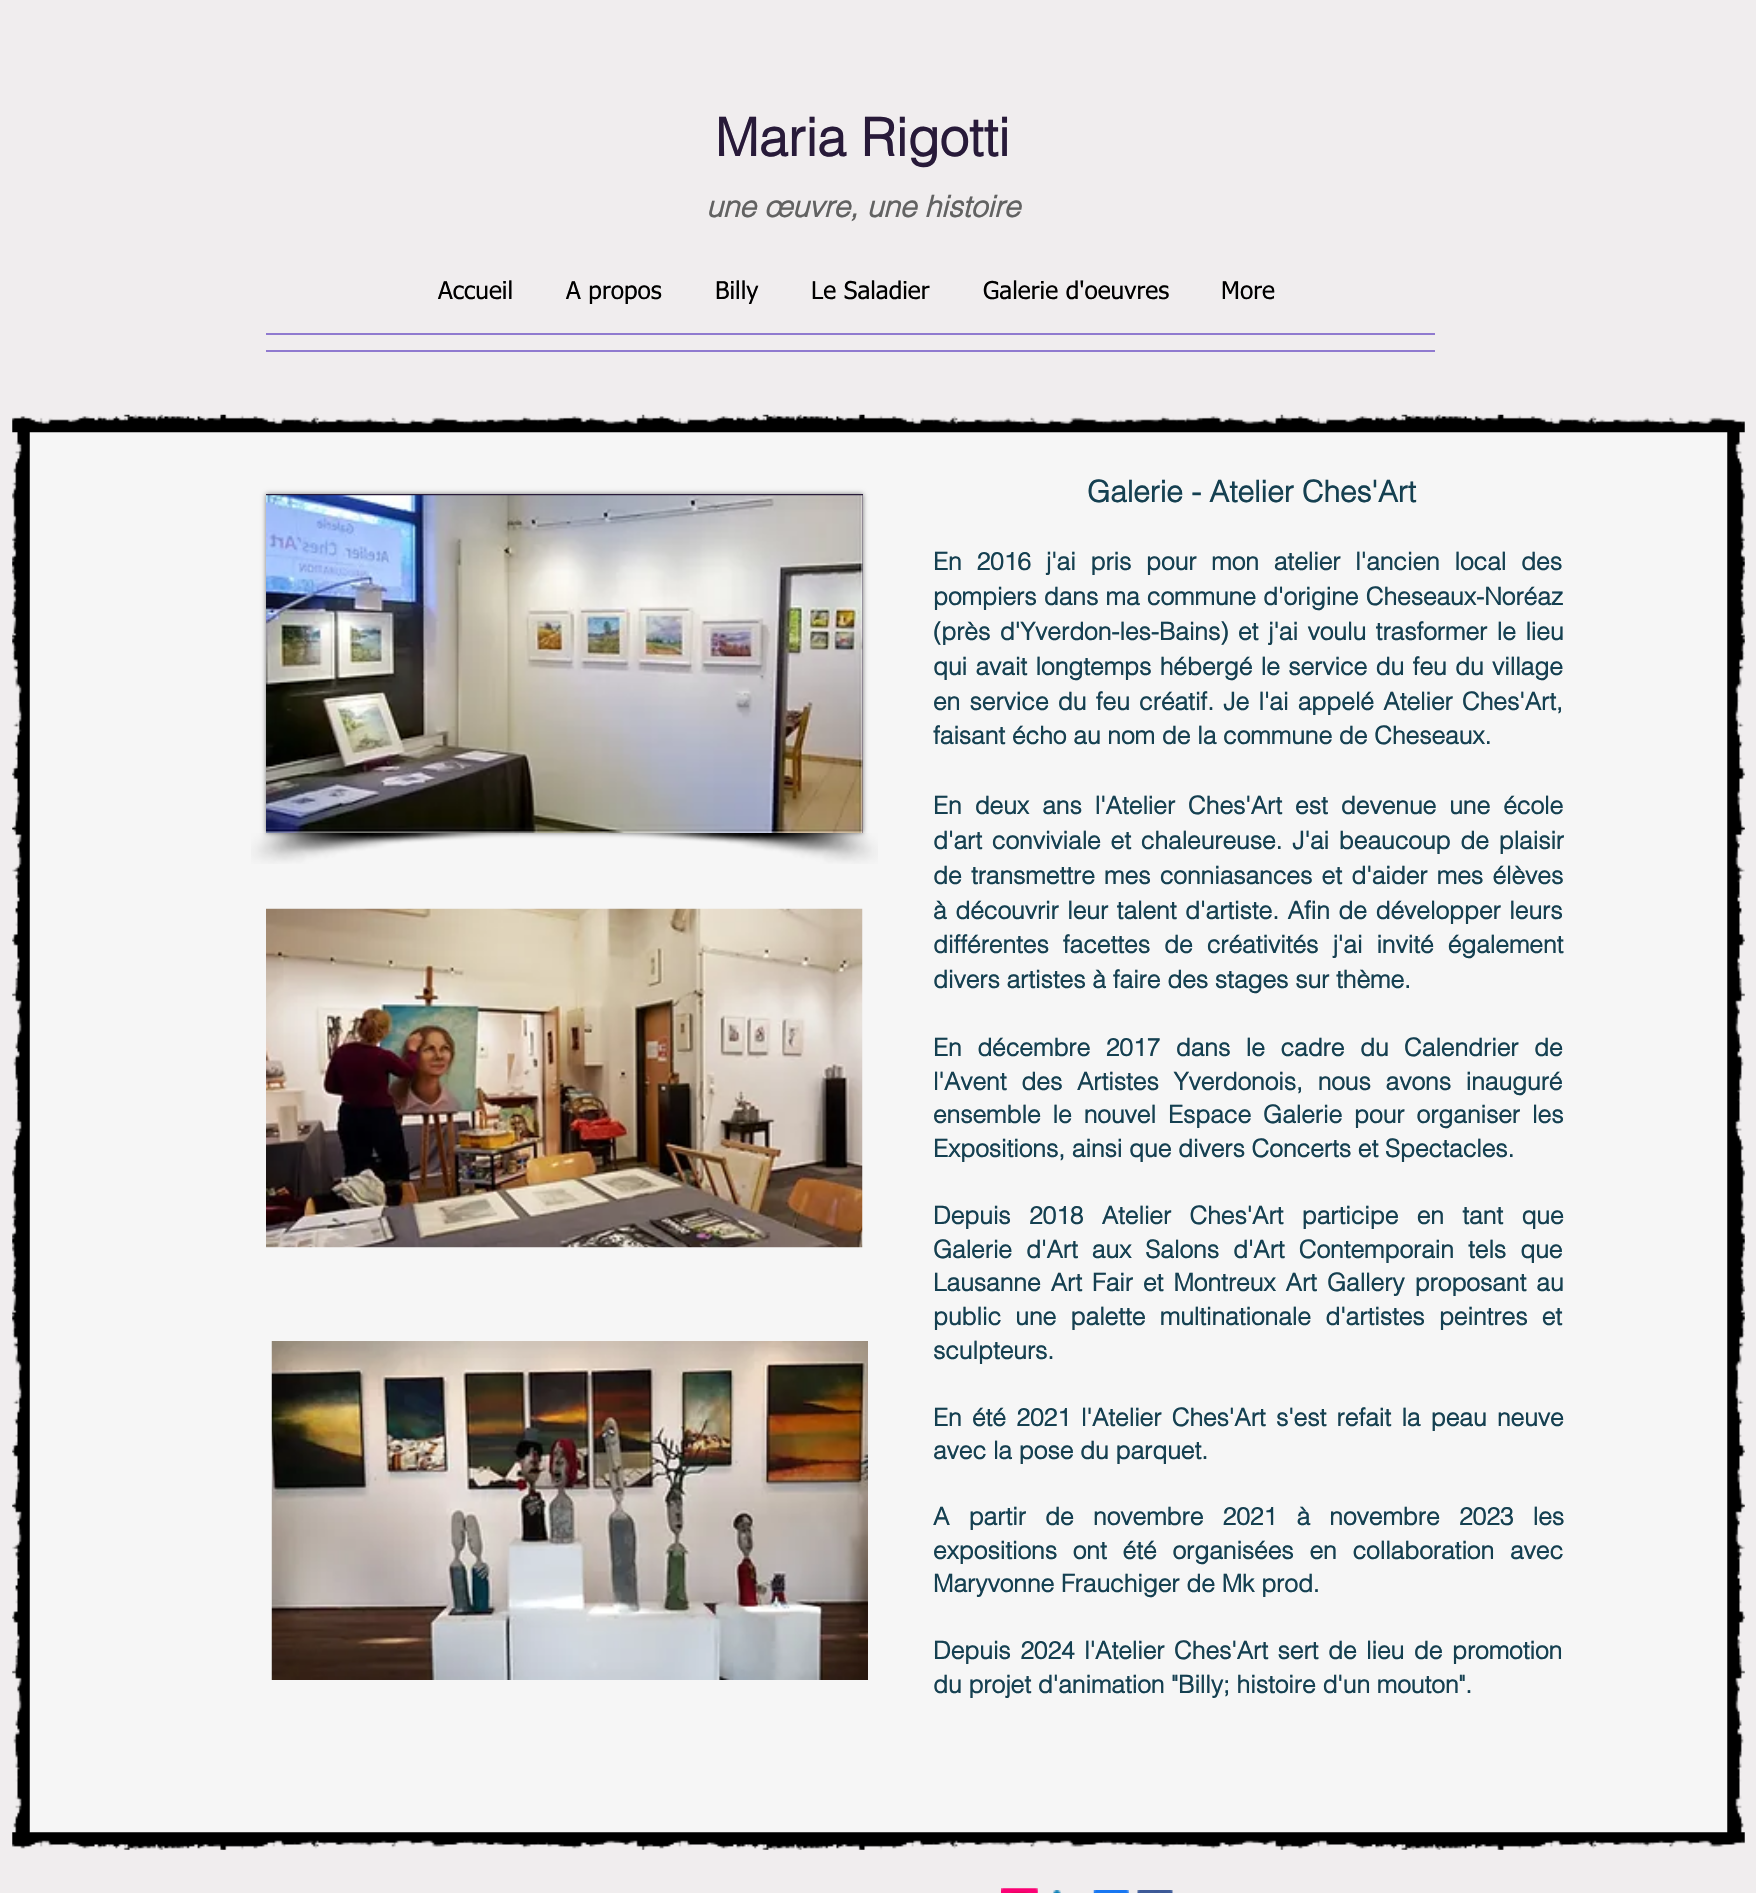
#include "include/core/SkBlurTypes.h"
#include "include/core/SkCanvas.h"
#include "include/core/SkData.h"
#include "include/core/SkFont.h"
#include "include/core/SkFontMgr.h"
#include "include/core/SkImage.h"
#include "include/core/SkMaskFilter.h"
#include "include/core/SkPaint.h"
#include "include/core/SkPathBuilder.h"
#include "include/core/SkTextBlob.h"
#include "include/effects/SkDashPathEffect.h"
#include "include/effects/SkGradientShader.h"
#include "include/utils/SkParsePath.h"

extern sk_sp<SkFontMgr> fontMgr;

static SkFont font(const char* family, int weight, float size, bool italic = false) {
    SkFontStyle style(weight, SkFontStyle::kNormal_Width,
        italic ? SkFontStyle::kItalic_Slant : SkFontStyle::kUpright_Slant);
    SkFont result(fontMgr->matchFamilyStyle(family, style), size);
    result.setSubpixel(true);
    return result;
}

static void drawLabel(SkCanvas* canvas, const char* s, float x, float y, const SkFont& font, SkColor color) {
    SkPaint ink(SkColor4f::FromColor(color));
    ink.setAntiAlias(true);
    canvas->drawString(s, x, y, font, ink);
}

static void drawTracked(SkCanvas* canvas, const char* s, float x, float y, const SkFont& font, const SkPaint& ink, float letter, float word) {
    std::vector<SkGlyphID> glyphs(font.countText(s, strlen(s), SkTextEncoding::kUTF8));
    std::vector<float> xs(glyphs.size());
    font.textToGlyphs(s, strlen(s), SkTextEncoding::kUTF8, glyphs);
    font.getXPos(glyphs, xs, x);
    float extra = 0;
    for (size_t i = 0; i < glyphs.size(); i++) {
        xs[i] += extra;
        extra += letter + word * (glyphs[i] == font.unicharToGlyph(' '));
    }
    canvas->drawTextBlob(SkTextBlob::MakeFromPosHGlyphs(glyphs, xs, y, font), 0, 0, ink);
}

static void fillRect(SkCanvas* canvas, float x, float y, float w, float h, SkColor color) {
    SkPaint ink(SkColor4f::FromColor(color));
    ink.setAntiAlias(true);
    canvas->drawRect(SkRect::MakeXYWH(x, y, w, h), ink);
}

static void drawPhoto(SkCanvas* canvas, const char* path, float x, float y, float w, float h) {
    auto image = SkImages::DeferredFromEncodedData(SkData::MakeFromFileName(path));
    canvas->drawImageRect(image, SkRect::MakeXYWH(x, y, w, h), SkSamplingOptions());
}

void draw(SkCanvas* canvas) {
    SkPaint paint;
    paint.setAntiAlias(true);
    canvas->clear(0xFFF0EDEE);
    SkFont font1 = font("helvetica", 700, 52.5f);
    drawLabel(canvas, "Maria Rigotti", 715, 156, font1, 0xFF281A39);
    SkFont font2 = font("helvetica", 700, 29.75f, true);
    drawLabel(canvas, "une œuvre, une histoire", 706, 217, font2, 0xFF626262);
    SkFont font3 = font("tahoma", 400, 24.5f);
    drawLabel(canvas, "Accueil", 438, 299, font3, 0xFF000000);
    drawLabel(canvas, "A propos", 566, 299, font3, 0xFF000000);
    drawLabel(canvas, "Billy", 715, 299, font3, 0xFF000000);
    drawLabel(canvas, "Le Saladier", 811, 299, font3, 0xFF000000);
    drawLabel(canvas, "Galerie d'oeuvres", 983, 299, font3, 0xFF000000);
    drawLabel(canvas, "More", 1221, 299, font3, 0xFF000000);
    fillRect(canvas, 266, 333, 1169, 2, 0xFF907ACF);
    fillRect(canvas, 266, 350, 1169, 2, 0xFF907ACF);
    fillRect(canvas, 29, 432, 1699, 1401, 0xFFF6F6F6);
    drawPhoto(canvas, "assets/img1.png", 12, 414, 1733, 19);
    drawPhoto(canvas, "assets/img2.png", 12, 1832, 1733, 18);
    drawPhoto(canvas, "assets/img3.png", 12, 432, 18, 1401);
    drawPhoto(canvas, "assets/img4.png", 1727, 432, 18, 1401);
    paint.setColor(0x80000000);
    paint.setMaskFilter(SkMaskFilter::MakeBlur(kNormal_SkBlurStyle, 2.5f));
    canvas->drawRect(SkRect::MakeXYWH(266, 494, 597, 339), paint);
    paint.setMaskFilter(nullptr);
    fillRect(canvas, 266, 494, 597, 339, 0xFF281A39);
    drawPhoto(canvas, "assets/img5.png", 266, 495, 597, 338);
    drawPhoto(canvas, "assets/img6.png", 251, 833, 268, 31);
    drawPhoto(canvas, "assets/img7.png", 609, 833, 269, 31);
    SkFont font4 = font("helvetica", 700, 29.75f);
    drawLabel(canvas, "Galerie - Atelier Ches'Art", 1087, 502, font4, 0xFF154051);
    SkFont font5 = font("helvetica", 700, 24.5f);
    paint.setColor(0xFF154051);
    drawTracked(canvas, "En 2016 j'ai pris pour mon atelier l'ancien local des", 933, 570, font5, paint, 0, 8);
    drawTracked(canvas, "pompiers dans ma commune d'origine Cheseaux-Noréaz", 933, 605, font5, paint, 0, 0.5f);
    drawTracked(canvas, "(près d'Yverdon-les-Bains) et j'ai voulu trasformer le lieu", 933, 640, font5, paint, 0, 2.75f);
    drawTracked(canvas, "qui avait longtemps hébergé le service du feu du village", 933, 675, font5, paint, 0, 1.6f);
    drawTracked(canvas, "en service du feu créatif. Je l'ai appelé Atelier Ches'Art,", 933, 710, font5, paint, 0, 2.5f);
    drawLabel(canvas, "faisant écho au nom de la commune de Cheseaux.", 933, 744, font5, 0xFF154051);
    drawTracked(canvas, "En deux ans l'Atelier Ches'Art est devenue une école", 933, 814, font5, paint, 0, 6.25f);
    drawTracked(canvas, "d'art conviviale et chaleureuse. J'ai beaucoup de plaisir", 933, 849, font5, paint, 0, 3);
    drawTracked(canvas, "de transmettre mes conniasances et d'aider mes élèves", 933, 884, font5, paint, 0, 2.5f);
    drawTracked(canvas, "à découvrir leur talent d'artiste. Afin de développer leurs", 933, 919, font5, paint, 0, 1.75f);
    drawTracked(canvas, "différentes facettes de créativités j'ai invité également", 933, 953, font5, paint, 0, 7.25f);
    drawLabel(canvas, "divers artistes à faire des stages sur thème.", 933, 988, font5, 0xFF154051);
    drawTracked(canvas, "En décembre 2017 dans le cadre du Calendrier de", 933, 1056, font5, paint, 0, 8.75f);
    drawTracked(canvas, "l'Avent des Artistes Yverdonois, nous avons inauguré", 933, 1090, font5, paint, 0, 8);
    drawTracked(canvas, "ensemble le nouvel Espace Galerie pour organiser les", 933, 1123, font5, paint, 0, 5.25f);
    drawLabel(canvas, "Expositions, ainsi que divers Concerts et Spectacles.", 933, 1157, font5, 0xFF154051);
    drawTracked(canvas, "Depuis 2018 Atelier Ches'Art participe en tant que", 933, 1224, font5, paint, 0, 11.5f);
    drawTracked(canvas, "Galerie d'Art aux Salons d'Art Contemporain tels que", 933, 1258, font5, paint, 0, 7.25f);
    drawTracked(canvas, "Lausanne Art Fair et Montreux Art Gallery proposant au", 933, 1291, font5, paint, 0, 3.25f);
    drawTracked(canvas, "public une palette multinationale d'artistes peintres et", 933, 1325, font5, paint, 0, 7.5f);
    drawLabel(canvas, "sculpteurs.", 933, 1359, font5, 0xFF154051);
    drawTracked(canvas, "En été 2021 l'Atelier Ches'Art s'est refait la peau neuve", 933, 1426, font5, paint, 0, 3.5f);
    drawLabel(canvas, "avec la pose du parquet.", 933, 1459, font5, 0xFF154051);
    drawTracked(canvas, "A partir de novembre 2021 à novembre 2023 les", 933, 1525, font5, paint, 0, 12.5f);
    drawTracked(canvas, "expositions ont été organisées en collaboration avec", 933, 1559, font5, paint, 0, 9);
    drawLabel(canvas, "Maryvonne Frauchiger de Mk prod.", 933, 1592, font5, 0xFF154051);
    drawTracked(canvas, "Depuis 2024 l'Atelier Ches'Art sert de lieu de promotion", 933, 1659, font5, paint, 0, 2.75f);
    drawLabel(canvas, "du projet d'animation \"Billy; histoire d'un mouton\".", 933, 1693, font5, 0xFF154051);
    drawPhoto(canvas, "assets/img8.png", 266, 908, 597, 340);
    drawPhoto(canvas, "assets/img9.png", 271, 1341, 597, 339);
    drawPhoto(canvas, "assets/img10.png", 1001, 1888, 37, 5);
    drawPhoto(canvas, "assets/img11.png", 1053, 1890, 8, 3);
    drawPhoto(canvas, "assets/img12.png", 1093, 1890, 36, 3);
    drawPhoto(canvas, "assets/img13.png", 1137, 1890, 36, 3);
}
